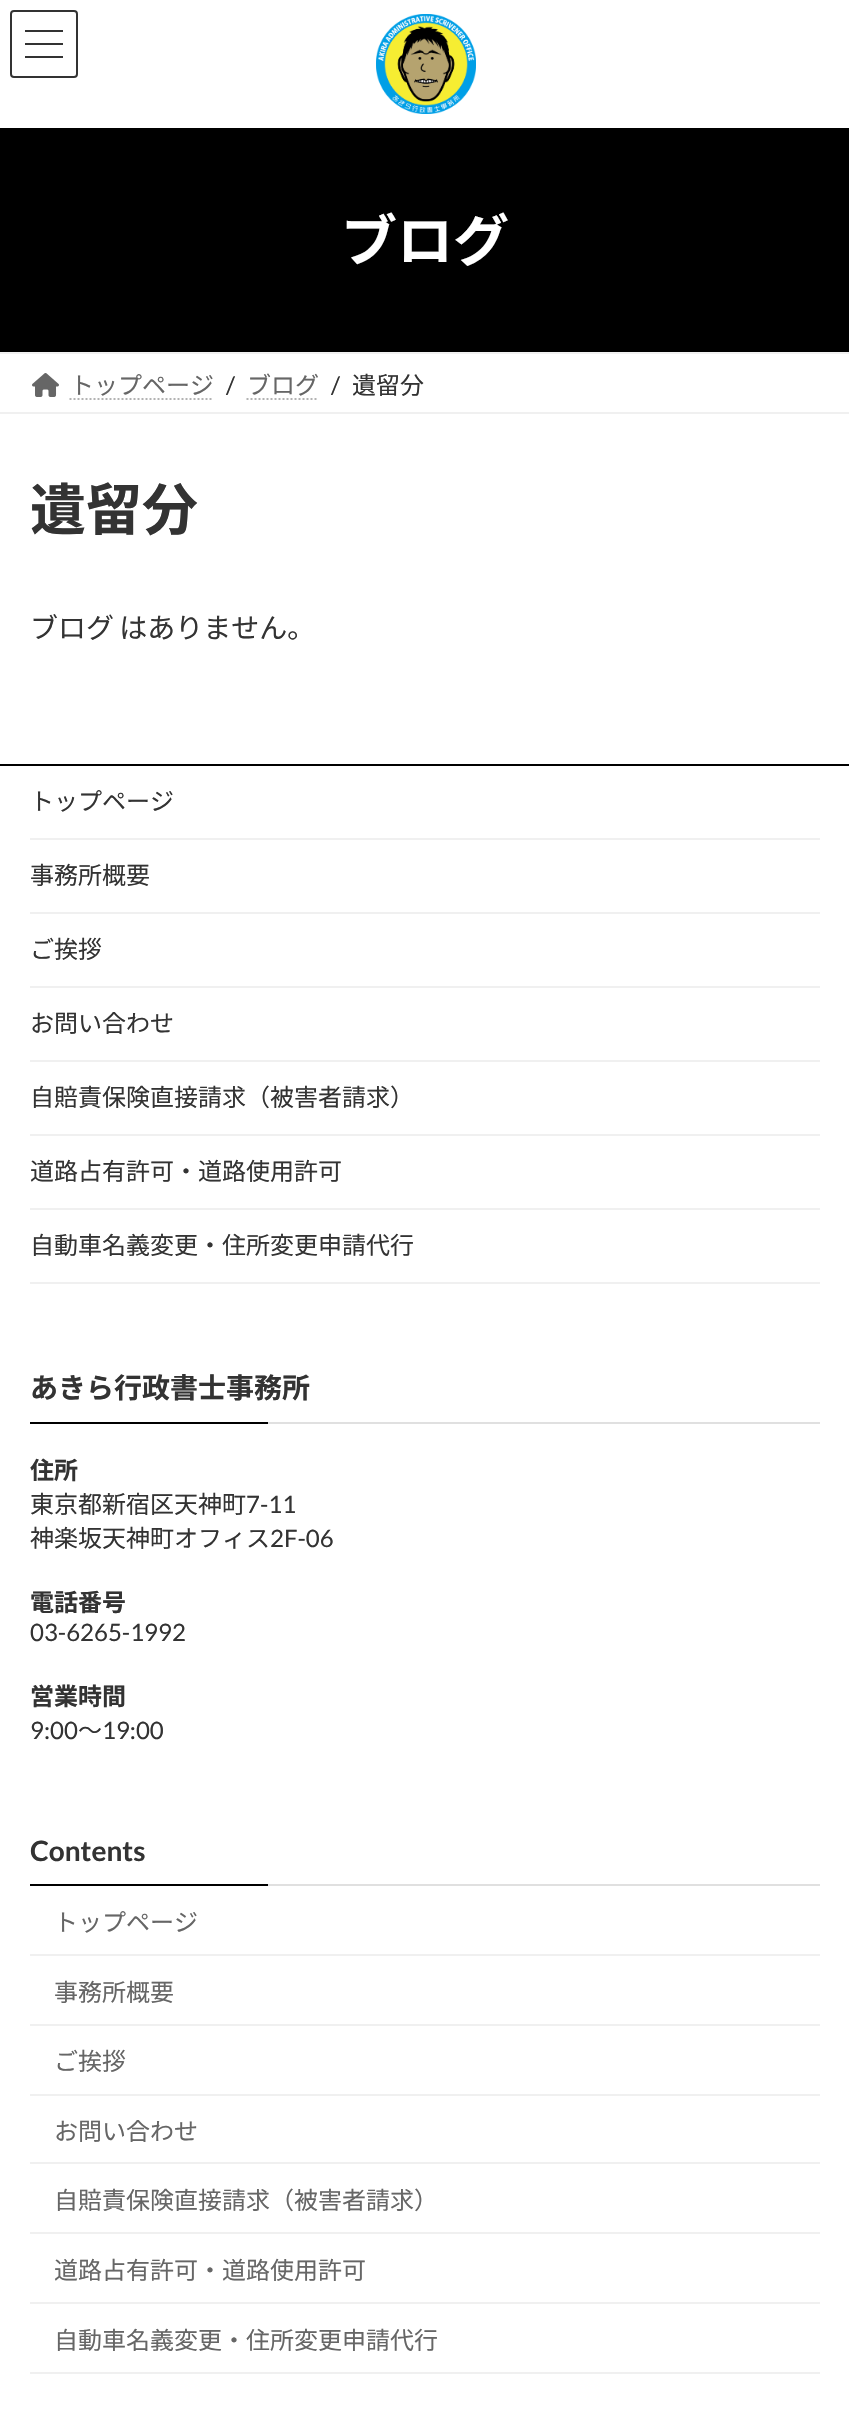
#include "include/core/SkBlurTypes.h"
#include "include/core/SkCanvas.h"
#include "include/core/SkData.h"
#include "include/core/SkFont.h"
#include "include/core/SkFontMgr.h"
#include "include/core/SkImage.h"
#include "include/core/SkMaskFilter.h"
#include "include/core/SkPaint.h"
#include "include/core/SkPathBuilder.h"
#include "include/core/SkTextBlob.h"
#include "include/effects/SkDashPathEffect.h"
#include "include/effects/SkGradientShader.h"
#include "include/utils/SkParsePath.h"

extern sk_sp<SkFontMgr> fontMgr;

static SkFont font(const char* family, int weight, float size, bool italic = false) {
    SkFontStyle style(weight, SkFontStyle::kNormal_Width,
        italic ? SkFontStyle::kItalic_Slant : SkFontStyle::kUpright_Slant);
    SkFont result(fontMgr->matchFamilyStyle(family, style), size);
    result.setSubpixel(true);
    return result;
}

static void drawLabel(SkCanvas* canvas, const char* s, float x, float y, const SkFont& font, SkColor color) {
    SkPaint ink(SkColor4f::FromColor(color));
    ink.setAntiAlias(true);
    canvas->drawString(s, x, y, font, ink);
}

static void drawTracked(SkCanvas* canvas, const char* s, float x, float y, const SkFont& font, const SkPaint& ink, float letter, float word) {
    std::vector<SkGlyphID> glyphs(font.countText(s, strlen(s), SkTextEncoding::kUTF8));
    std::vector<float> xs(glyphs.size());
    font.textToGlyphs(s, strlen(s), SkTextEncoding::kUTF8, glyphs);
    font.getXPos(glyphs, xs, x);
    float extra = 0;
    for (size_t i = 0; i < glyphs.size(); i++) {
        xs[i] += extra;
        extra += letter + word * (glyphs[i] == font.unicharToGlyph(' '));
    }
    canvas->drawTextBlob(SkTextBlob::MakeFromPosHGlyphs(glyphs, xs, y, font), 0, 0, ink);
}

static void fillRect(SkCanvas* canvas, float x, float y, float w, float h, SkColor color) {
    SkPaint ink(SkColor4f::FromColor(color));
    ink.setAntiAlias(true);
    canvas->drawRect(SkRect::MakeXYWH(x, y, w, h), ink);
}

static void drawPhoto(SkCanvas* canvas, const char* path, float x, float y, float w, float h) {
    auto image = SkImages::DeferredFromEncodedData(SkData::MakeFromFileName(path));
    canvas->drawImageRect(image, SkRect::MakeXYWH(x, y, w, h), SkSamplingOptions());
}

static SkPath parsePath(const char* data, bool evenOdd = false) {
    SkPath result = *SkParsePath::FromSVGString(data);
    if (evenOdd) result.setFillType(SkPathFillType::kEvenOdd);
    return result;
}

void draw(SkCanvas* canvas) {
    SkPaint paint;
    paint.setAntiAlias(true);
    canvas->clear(0xFFFFFFFF);
    fillRect(canvas, 25, 30, 38, 2, 0xFF333333);
    fillRect(canvas, 25, 43, 38, 2, 0xFF333333);
    fillRect(canvas, 25, 56, 38, 2, 0xFF333333);
    paint.setStroke(true);
    paint.setStrokeWidth(2);
    paint.setColor(0xFF333333);
    canvas->drawRoundRect(SkRect::MakeXYWH(11, 11, 66, 66), 3, 3, paint);
    drawPhoto(canvas, "assets/img1.png", 376, 14, 100, 100);
    fillRect(canvas, 0, 128, 849, 224, 0xFF000000);
    SkFont font1 = font("Noto Sans JP", 700, 56);
    drawLabel(canvas, "ブログ", 341, 261, font1, 0xFFFFFFFF);
    fillRect(canvas, 0, 352, 849, 2, 0xFFF0F0F0);
    fillRect(canvas, 0, 412, 849, 2, 0xFFF0F0F0);
    drawPhoto(canvas, "assets/img2.png", 32, 373, 27, 24);
    SkFont font2 = font("Noto Sans JP", 400, 24);
    drawLabel(canvas, "トップページ", 70, 394, font2, 0xFF666666);
    paint.setColor(0xFFB3B3B3);
    paint.setPathEffect(SkDashPathEffect::Make({{2, 2}}, 0));
    canvas->drawPath(parsePath("M69.5 399H213.5"), paint);
    paint.setPathEffect(nullptr);
    SkFont font3 = font("Lato", 400, 24);
    drawLabel(canvas, "/", 226, 394, font3, 0xFF333333);
    drawLabel(canvas, "ブログ", 247, 394, font2, 0xFF666666);
    paint.setPathEffect(SkDashPathEffect::Make({{2, 2}}, 0));
    canvas->drawPath(parsePath("M246.5 399H318.5"), paint);
    paint.setPathEffect(nullptr);
    drawLabel(canvas, "/", 331, 394, font3, 0xFF333333);
    drawLabel(canvas, "遺留分", 352, 394, font2, 0xFF333333);
    drawLabel(canvas, "遺留分", 30, 530, font1, 0xFF333333);
    SkFont font4 = font("Noto Sans JP", 400, 28);
    paint.setStroke(false);
    paint.setColor(0xFF333333);
    drawTracked(canvas, "ブログ はありません。", 30, 638, font4, paint, 0, -1);
    fillRect(canvas, 0, 764, 849, 2, 0xFF000000);
    fillRect(canvas, 30, 838, 790, 2, 0xFFF0F0F0);
    drawLabel(canvas, "トップページ", 30, 810, font2, 0xFF333333);
    fillRect(canvas, 30, 912, 790, 2, 0xFFF0F0F0);
    drawLabel(canvas, "事務所概要", 30, 884, font2, 0xFF333333);
    fillRect(canvas, 30, 986, 790, 2, 0xFFF0F0F0);
    drawLabel(canvas, "ご挨拶", 30, 958, font2, 0xFF333333);
    fillRect(canvas, 30, 1060, 790, 2, 0xFFF0F0F0);
    drawLabel(canvas, "お問い合わせ", 30, 1032, font2, 0xFF333333);
    fillRect(canvas, 30, 1134, 790, 2, 0xFFF0F0F0);
    drawLabel(canvas, "自賠責保険直接請求（被害者請求）", 30, 1106, font2, 0xFF333333);
    fillRect(canvas, 30, 1208, 790, 2, 0xFFF0F0F0);
    drawLabel(canvas, "道路占有許可・道路使用許可", 30, 1180, font2, 0xFF333333);
    fillRect(canvas, 30, 1282, 790, 2, 0xFFF0F0F0);
    drawLabel(canvas, "自動車名義変更・住所変更申請代行", 30, 1254, font2, 0xFF333333);
    fillRect(canvas, 268, 1422, 552, 2, 0xFFE0E0E0);
    SkFont font5 = font("Noto Sans JP", 700, 28);
    drawLabel(canvas, "あきら行政書士事務所", 30, 1398, font5, 0xFF333333);
    fillRect(canvas, 30, 1422, 238, 2, 0xFF000000);
    SkFont font6 = font("Noto Sans JP", 700, 24);
    drawLabel(canvas, "住所", 30, 1479, font6, 0xFF333333);
    drawLabel(canvas, "東京都新宿区天神町", 30, 1513, font2, 0xFF333333);
    drawLabel(canvas, "7-11", 246, 1513, font3, 0xFF333333);
    drawLabel(canvas, "神楽坂天神町オフィス", 30, 1547, font2, 0xFF333333);
    drawLabel(canvas, "2F-06", 270, 1547, font3, 0xFF333333);
    drawLabel(canvas, "電話番号", 30, 1611, font6, 0xFF333333);
    drawLabel(canvas, "03-6265-1992", 30, 1641, font3, 0xFF333333);
    drawLabel(canvas, "営業時間", 30, 1705, font6, 0xFF333333);
    drawLabel(canvas, "9:00", 30, 1739, font3, 0xFF333333);
    drawLabel(canvas, "～", 78, 1739, font2, 0xFF333333);
    drawLabel(canvas, "19:00", 102, 1739, font3, 0xFF333333);
    fillRect(canvas, 268, 1884, 552, 2, 0xFFE0E0E0);
    SkFont font7 = font("Lato", 700, 28);
    drawLabel(canvas, "Contents", 30, 1861, font7, 0xFF333333);
    fillRect(canvas, 30, 1884, 238, 2, 0xFF000000);
    fillRect(canvas, 30, 1954, 790, 2, 0xFFF0F0F0);
    drawLabel(canvas, "トップページ", 54, 1931, font2, 0xFF666666);
    fillRect(canvas, 30, 2024, 790, 2, 0xFFF0F0F0);
    drawLabel(canvas, "事務所概要", 54, 2001, font2, 0xFF666666);
    fillRect(canvas, 30, 2094, 790, 2, 0xFFF0F0F0);
    drawLabel(canvas, "ご挨拶", 54, 2070, font2, 0xFF666666);
    fillRect(canvas, 30, 2162, 790, 2, 0xFFF0F0F0);
    drawLabel(canvas, "お問い合わせ", 54, 2140, font2, 0xFF666666);
    fillRect(canvas, 30, 2232, 790, 2, 0xFFF0F0F0);
    drawLabel(canvas, "自賠責保険直接請求（被害者請求）", 54, 2209, font2, 0xFF666666);
    fillRect(canvas, 30, 2302, 790, 2, 0xFFF0F0F0);
    drawLabel(canvas, "道路占有許可・道路使用許可", 54, 2279, font2, 0xFF666666);
    fillRect(canvas, 30, 2372, 790, 2, 0xFFF0F0F0);
    drawLabel(canvas, "自動車名義変更・住所変更申請代行", 54, 2349, font2, 0xFF666666);
}
